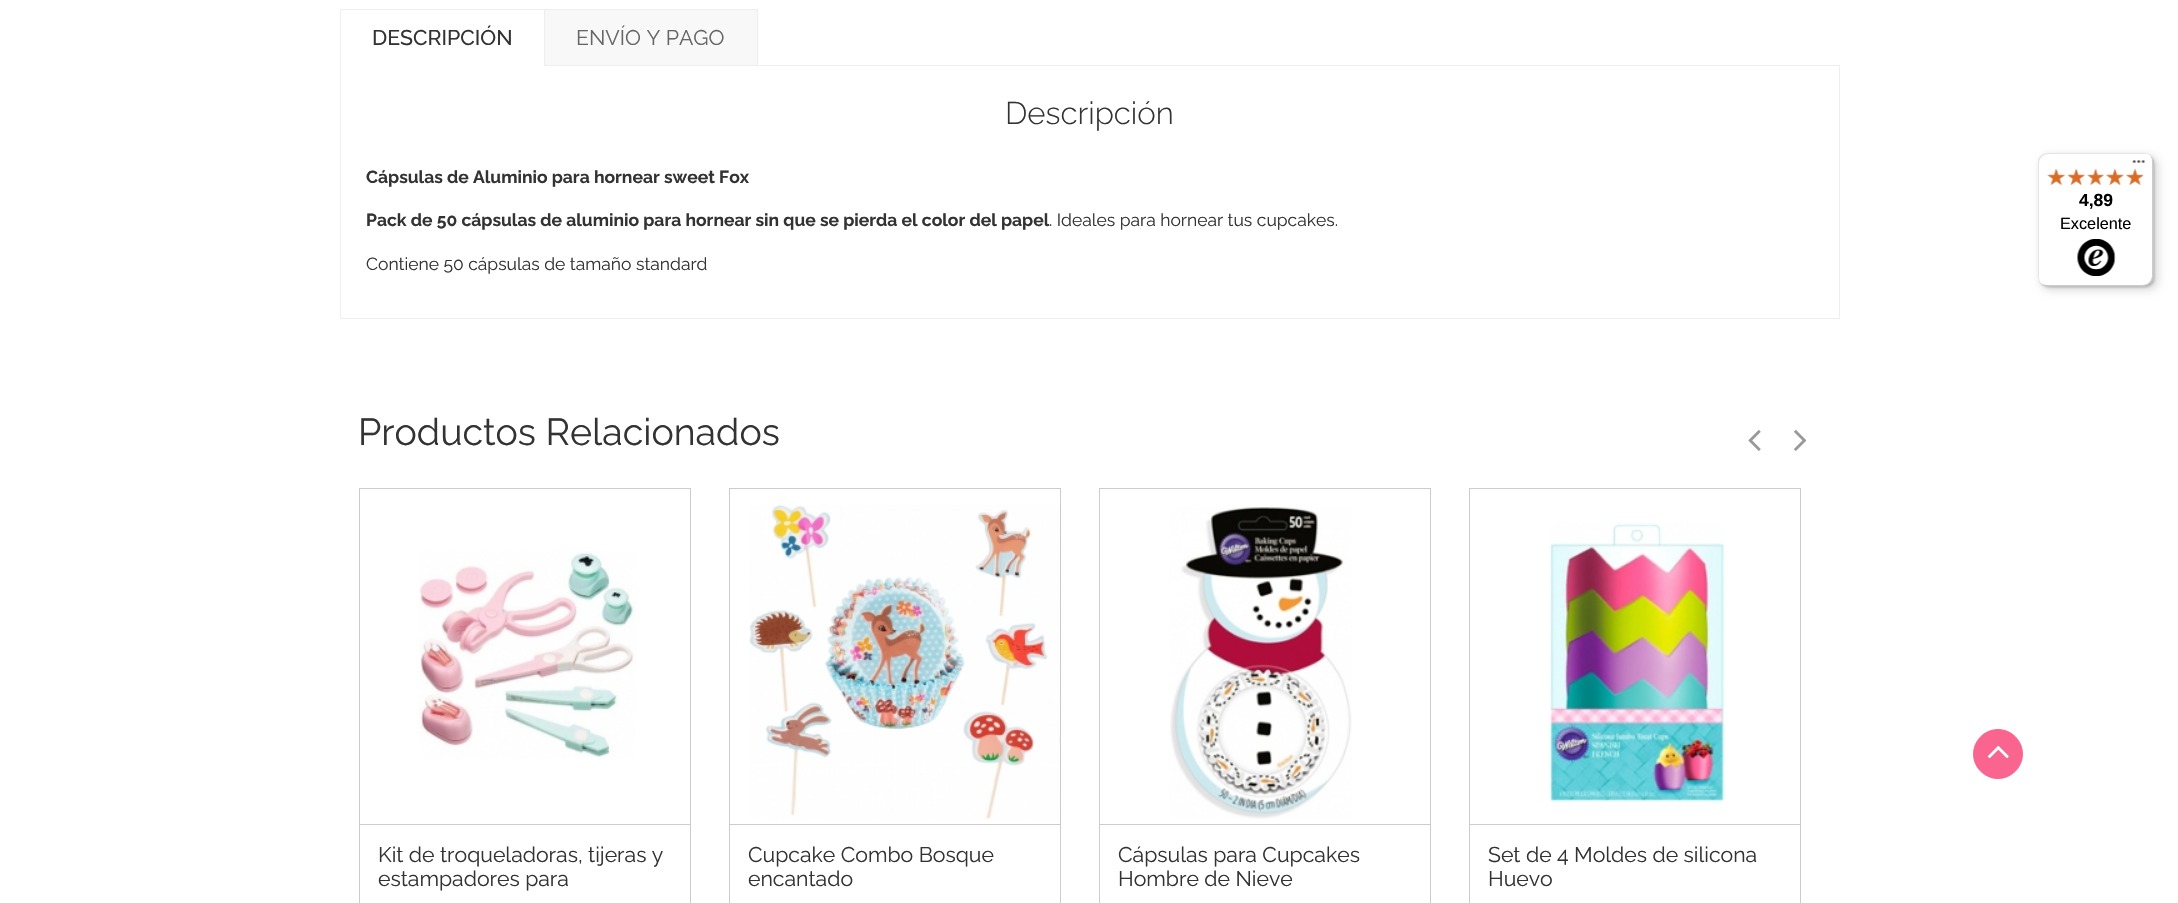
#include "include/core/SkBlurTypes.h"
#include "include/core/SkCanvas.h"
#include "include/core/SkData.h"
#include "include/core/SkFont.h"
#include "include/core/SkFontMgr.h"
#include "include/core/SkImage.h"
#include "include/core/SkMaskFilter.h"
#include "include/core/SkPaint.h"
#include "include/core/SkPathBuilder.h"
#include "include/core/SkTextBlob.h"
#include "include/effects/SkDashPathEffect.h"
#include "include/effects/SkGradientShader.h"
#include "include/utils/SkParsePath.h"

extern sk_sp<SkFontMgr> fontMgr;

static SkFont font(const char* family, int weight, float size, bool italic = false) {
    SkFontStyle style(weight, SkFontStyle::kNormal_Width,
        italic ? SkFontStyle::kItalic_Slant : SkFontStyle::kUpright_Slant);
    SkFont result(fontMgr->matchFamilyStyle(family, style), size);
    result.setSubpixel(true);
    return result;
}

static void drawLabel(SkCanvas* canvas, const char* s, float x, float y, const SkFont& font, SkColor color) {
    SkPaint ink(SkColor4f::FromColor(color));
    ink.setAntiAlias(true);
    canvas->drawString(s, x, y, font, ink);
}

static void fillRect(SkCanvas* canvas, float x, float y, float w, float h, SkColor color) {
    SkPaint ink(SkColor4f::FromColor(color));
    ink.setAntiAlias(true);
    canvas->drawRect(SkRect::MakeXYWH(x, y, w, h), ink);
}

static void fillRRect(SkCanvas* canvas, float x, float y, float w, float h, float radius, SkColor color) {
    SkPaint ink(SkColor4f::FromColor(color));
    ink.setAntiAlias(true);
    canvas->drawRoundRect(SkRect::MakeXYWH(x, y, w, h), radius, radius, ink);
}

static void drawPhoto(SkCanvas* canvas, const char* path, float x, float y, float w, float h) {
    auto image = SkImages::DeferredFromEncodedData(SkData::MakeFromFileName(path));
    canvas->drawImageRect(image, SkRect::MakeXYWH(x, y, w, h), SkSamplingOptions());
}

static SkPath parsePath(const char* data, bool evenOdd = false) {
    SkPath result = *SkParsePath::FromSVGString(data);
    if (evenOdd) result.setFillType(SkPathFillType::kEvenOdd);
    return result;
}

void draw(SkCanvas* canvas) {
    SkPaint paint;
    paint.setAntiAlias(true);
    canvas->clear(0xFFFFFFFF);
    fillRect(canvas, 545, 10, 212, 55, 0xFFF8F8F8);
    fillRect(canvas, 758, 65, 1082, 1, 0xFFEEEEEE);
    fillRect(canvas, 340, 9, 205, 1, 0xFFEEEEEE);
    fillRect(canvas, 340, 9, 1, 57, 0xFFEEEEEE);
    SkFont font1 = font("Raleway", 500, 21.25f);
    drawLabel(canvas, "DESCRIPCIÓN", 372, 45, font1, 0xFF333333);
    paint.setStroke(true);
    paint.setStrokeWidth(1);
    paint.setColor(0xFFEEEEEE);
    canvas->drawRect(SkRect::MakeXYWH(544.5f, 9.5f, 213, 56), paint);
    SkFont font2 = font("Raleway", 400, 21.25f);
    drawLabel(canvas, "ENVÍO Y PAGO", 576, 45, font2, 0xFF666666);
    fillRect(canvas, 1839, 66, 1, 253, 0xFFEEEEEE);
    fillRect(canvas, 340, 318, 1500, 1, 0xFFEEEEEE);
    fillRect(canvas, 340, 66, 1, 253, 0xFFEEEEEE);
    SkFont font3 = font("Raleway", 300, 31.25f);
    drawLabel(canvas, "Descripción", 1005, 124, font3, 0xFF333333);
    SkFont font4 = font("Raleway", 700, 17.5f);
    drawLabel(canvas, "Cápsulas de Aluminio para hornear sweet Fox", 366, 183, font4, 0xFF333333);
    drawLabel(canvas, "Pack de 50 cápsulas de aluminio para hornear sin que se pierda el color del papel", 366, 226, font4, 0xFF333333);
    SkFont font5 = font("Raleway", 400, 17.5f);
    drawLabel(canvas, ". Ideales para hornear tus cupcakes.", 1049, 226, font5, 0xFF333333);
    drawLabel(canvas, "Contiene 50 cápsulas de tamaño standard", 366, 270, font5, 0xFF333333);
    SkFont font6 = font("Raleway", 400, 37.5f);
    drawLabel(canvas, "Productos Relacionados", 358, 445, font6, 0xFF333333);
    drawPhoto(canvas, "assets/img1.png", 1748, 430, 13, 21);
    drawPhoto(canvas, "assets/img2.png", 1794, 430, 13, 21);
    paint.setColor(0xFFCCCCCC);
    canvas->drawRect(SkRect::MakeXYWH(359.5f, 488.5f, 331, 336), paint);
    drawPhoto(canvas, "assets/img3.png", 419, 551, 217, 208);
    canvas->drawRect(SkRect::MakeXYWH(359.5f, 824.5f, 331, 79), paint);
    drawLabel(canvas, "Kit de troqueladoras, tijeras y", 378, 862, font2, 0xFF333333);
    drawLabel(canvas, "estampadores para", 378, 886, font2, 0xFF333333);
    canvas->drawRect(SkRect::MakeXYWH(729.5f, 488.5f, 331, 336), paint);
    drawPhoto(canvas, "assets/img4.png", 749, 505, 311, 315);
    canvas->drawRect(SkRect::MakeXYWH(729.5f, 824.5f, 331, 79), paint);
    drawLabel(canvas, "Cupcake Combo Bosque", 748, 862, font2, 0xFF333333);
    drawLabel(canvas, "encantado", 748, 886, font2, 0xFF333333);
    canvas->drawRect(SkRect::MakeXYWH(1099.5f, 488.5f, 331, 336), paint);
    drawPhoto(canvas, "assets/img5.png", 1170, 507, 182, 312);
    canvas->drawRect(SkRect::MakeXYWH(1099.5f, 824.5f, 331, 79), paint);
    drawLabel(canvas, "Cápsulas para Cupcakes", 1118, 862, font2, 0xFF333333);
    drawLabel(canvas, "Hombre de Nieve", 1118, 886, font2, 0xFF333333);
    canvas->drawRect(SkRect::MakeXYWH(1469.5f, 488.5f, 331, 336), paint);
    drawPhoto(canvas, "assets/img6.png", 1549, 522, 176, 281);
    canvas->drawRect(SkRect::MakeXYWH(1469.5f, 824.5f, 331, 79), paint);
    drawLabel(canvas, "Set de 4 Moldes de silicona", 1488, 862, font2, 0xFF333333);
    drawLabel(canvas, "Huevo", 1488, 886, font2, 0xFF333333);
    paint.setStroke(false);
    paint.setColor(0xFFFA658F);
    canvas->drawCircle(1998, 754, 24.5f, paint);
    paint.setStroke(true);
    canvas->drawCircle(1998, 754, 24.5f, paint);
    drawPhoto(canvas, "assets/img7.png", 1987, 746, 22, 13);
    paint.setStroke(false);
    paint.setColor(0x26000000);
    paint.setMaskFilter(SkMaskFilter::MakeBlur(kNormal_SkBlurStyle, 5));
    canvas->drawRoundRect(SkRect::MakeXYWH(2041, 156, 117, 134), 10, 10, paint);
    paint.setMaskFilter(nullptr);
    paint.setMaskFilter(SkMaskFilter::MakeBlur(kNormal_SkBlurStyle, 1));
    canvas->drawRoundRect(SkRect::MakeXYWH(2039, 154, 116, 134), 10, 10, paint);
    paint.setMaskFilter(nullptr);
    fillRRect(canvas, 2038, 153, 116, 133, 10, 0xFFFFFFFF);
    paint.setColor(0xFFE5E5E5);
    canvas->drawPath(parsePath("M2049 154H2145C2147 154 2149 154 2150 155C2149 154 2146 153 2144 153H2048C2042 153 2038 157 2038 163V276C2038 278 2039 280 2040 282L2039 278V164C2039 158 2043 154 2049 154Z"), paint);
    paint.setColor(0x33000000);
    canvas->drawPath(parsePath("M2042 284C2044 285 2046 286 2048 286H2144C2150 286 2154 282 2154 276V163C2154 160 2152 157 2150 155C2151 157 2152 159 2152 161V275C2152 281 2148 285 2142 285H2046Z"), paint);
    paint.setColor(0x33323232);
    canvas->drawPath(parsePath("M2143 286H2144C2150 286 2154 282 2154 276V163C2154 161 2153 158 2152 157C2153 158 2153 160 2153 162V276C2153 281 2149 286 2143 286Z"), paint);
    paint.setColor(0x4DFFFFFF);
    canvas->drawPath(parsePath("M2143 286H2144C2150 286 2154 282 2154 276V163C2154 161 2153 158 2152 157C2153 158 2153 160 2153 162V276C2153 281 2149 286 2143 286Z"), paint);
    drawPhoto(canvas, "assets/img8.png", 2132, 160, 13, 3);
    drawPhoto(canvas, "assets/img14.png", 2047, 169, 18, 16);
    drawPhoto(canvas, "assets/img9.png", 2047, 168, 18, 17);
    drawPhoto(canvas, "assets/img15.png", 2068, 169, 17, 16);
    drawPhoto(canvas, "assets/img10.png", 2067, 168, 18, 17);
    drawPhoto(canvas, "assets/img16.png", 2087, 169, 17, 16);
    drawPhoto(canvas, "assets/img11.png", 2087, 168, 17, 17);
    drawPhoto(canvas, "assets/img17.png", 2106, 169, 18, 16);
    drawPhoto(canvas, "assets/img12.png", 2106, 168, 18, 17);
    drawPhoto(canvas, "assets/img18.png", 2126, 169, 18, 16);
    drawPhoto(canvas, "assets/img13.png", 2126, 168, 17, 17);
    SkFont font7 = font("Liberation Sans", 700, 17.5f);
    drawLabel(canvas, "4,89", 2079, 206, font7, 0xFF000000);
    SkFont font8 = font("Liberation Sans", 400, 16.25f);
    drawLabel(canvas, "Excelente", 2060, 229, font8, 0xFF000000);
    drawPhoto(canvas, "assets/img19.png", 2077, 239, 39, 37);
}
